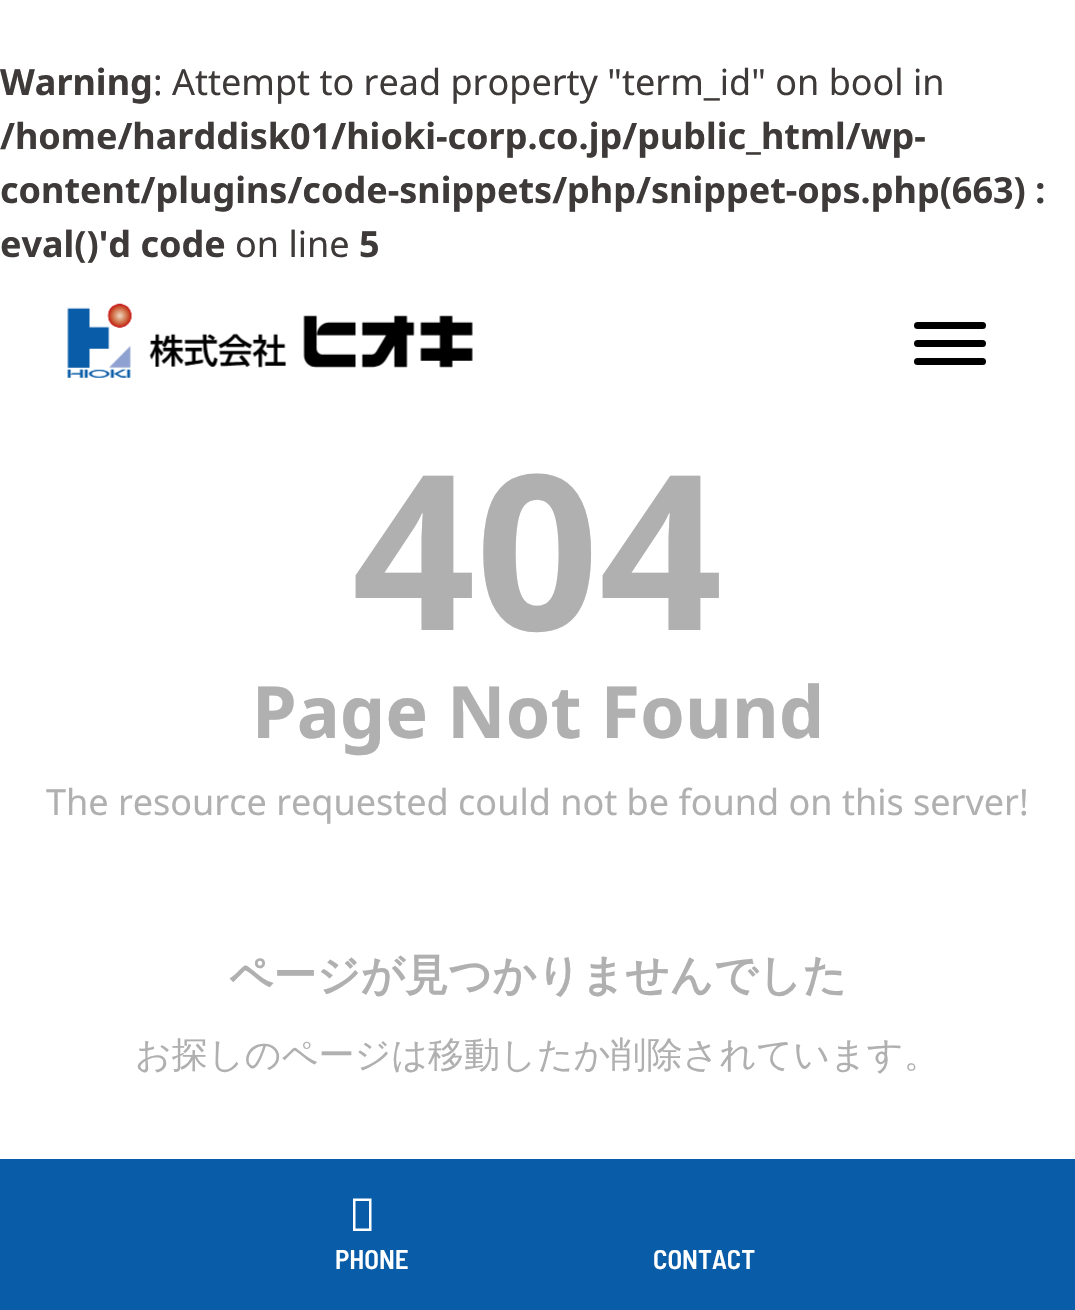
#include "include/core/SkBlurTypes.h"
#include "include/core/SkCanvas.h"
#include "include/core/SkData.h"
#include "include/core/SkFont.h"
#include "include/core/SkFontMgr.h"
#include "include/core/SkImage.h"
#include "include/core/SkMaskFilter.h"
#include "include/core/SkPaint.h"
#include "include/core/SkPathBuilder.h"
#include "include/core/SkTextBlob.h"
#include "include/effects/SkDashPathEffect.h"
#include "include/effects/SkGradientShader.h"
#include "include/utils/SkParsePath.h"

extern sk_sp<SkFontMgr> fontMgr;

static SkFont font(const char* family, int weight, float size, bool italic = false) {
    SkFontStyle style(weight, SkFontStyle::kNormal_Width,
        italic ? SkFontStyle::kItalic_Slant : SkFontStyle::kUpright_Slant);
    SkFont result(fontMgr->matchFamilyStyle(family, style), size);
    result.setSubpixel(true);
    return result;
}

static void drawLabel(SkCanvas* canvas, const char* s, float x, float y, const SkFont& font, SkColor color) {
    SkPaint ink(SkColor4f::FromColor(color));
    ink.setAntiAlias(true);
    canvas->drawString(s, x, y, font, ink);
}

static void fillRect(SkCanvas* canvas, float x, float y, float w, float h, SkColor color) {
    SkPaint ink(SkColor4f::FromColor(color));
    ink.setAntiAlias(true);
    canvas->drawRect(SkRect::MakeXYWH(x, y, w, h), ink);
}

static void fillRRect(SkCanvas* canvas, float x, float y, float w, float h, float radius, SkColor color) {
    SkPaint ink(SkColor4f::FromColor(color));
    ink.setAntiAlias(true);
    canvas->drawRoundRect(SkRect::MakeXYWH(x, y, w, h), radius, radius, ink);
}

static void drawPhoto(SkCanvas* canvas, const char* path, float x, float y, float w, float h) {
    auto image = SkImages::DeferredFromEncodedData(SkData::MakeFromFileName(path));
    canvas->drawImageRect(image, SkRect::MakeXYWH(x, y, w, h), SkSamplingOptions());
}

static SkPath parsePath(const char* data, bool evenOdd = false) {
    SkPath result = *SkParsePath::FromSVGString(data);
    if (evenOdd) result.setFillType(SkPathFillType::kEvenOdd);
    return result;
}

void draw(SkCanvas* canvas) {
    SkPaint paint;
    paint.setAntiAlias(true);
    canvas->clear(0xFFFFFFFF);
    SkFont font1 = font("Noto Sans", 700, 36);
    drawLabel(canvas, "Warning", 0, 95, font1, 0xFF3E3A39);
    SkFont font2 = font("Noto Sans", 400, 36);
    drawLabel(canvas, ": Attempt to read property \"term_id\" on bool in", 153, 95, font2, 0xFF3E3A39);
    drawLabel(canvas, "/home/harddisk01/hioki-corp.co.jp/public_html/wp-", 0, 149, font1, 0xFF3E3A39);
    drawLabel(canvas, "content/plugins/code-snippets/php/snippet-ops.php(663) :", 0, 203, font1, 0xFF3E3A39);
    drawLabel(canvas, "eval()'d code", 0, 257, font1, 0xFF3E3A39);
    drawLabel(canvas, "on line", 235, 257, font2, 0xFF3E3A39);
    drawLabel(canvas, "5", 359, 257, font1, 0xFF3E3A39);
    drawPhoto(canvas, "assets/img1.png", 67, 303, 406, 75);
    fillRRect(canvas, 914, 322, 72, 7, 3.5f, 0xFF000000);
    fillRRect(canvas, 914, 340, 72, 7, 3.5f, 0xFF000000);
    fillRRect(canvas, 914, 358, 72, 7, 3.5f, 0xFF000000);
    SkFont font3 = font("Noto Sans", 700, 216);
    drawLabel(canvas, "404", 352, 630, font3, 0xFFB0B0B0);
    SkFont font4 = font("Noto Sans", 700, 72);
    drawLabel(canvas, "Page Not Found", 252, 738, font4, 0xFFB0B0B0);
    drawLabel(canvas, "The resource requested could not be found on this server!", 46, 815, font2, 0xFFB0B0B0);
    SkFont font5 = font("WenQuanYi Zen Hei", 700, 43.25f);
    drawLabel(canvas, "ページが見つかりませんでした", 229, 990, font5, 0xFFB0B0B0);
    SkFont font6 = font("WenQuanYi Zen Hei", 500, 36);
    drawLabel(canvas, "お探しのページは移動したか削除されています。", 135, 1067, font6, 0xFFB0B0B0);
    fillRect(canvas, 0, 1159, 1075, 151, 0xFF095CA7);
    paint.setColor(0xFFFFFFFF);
    canvas->drawPath(parsePath("M353 1231V1198.5H371.5V1231ZM355.5 1228.5H369V1201H355.5Z"), paint);
    SkFont font7 = font("Barlow Semi Condensed", 600, 27);
    drawLabel(canvas, "PHONE", 335, 1269, font7, 0xFFFFFFFF);
    drawLabel(canvas, "CONTACT", 653, 1269, font7, 0xFFFFFFFF);
}
